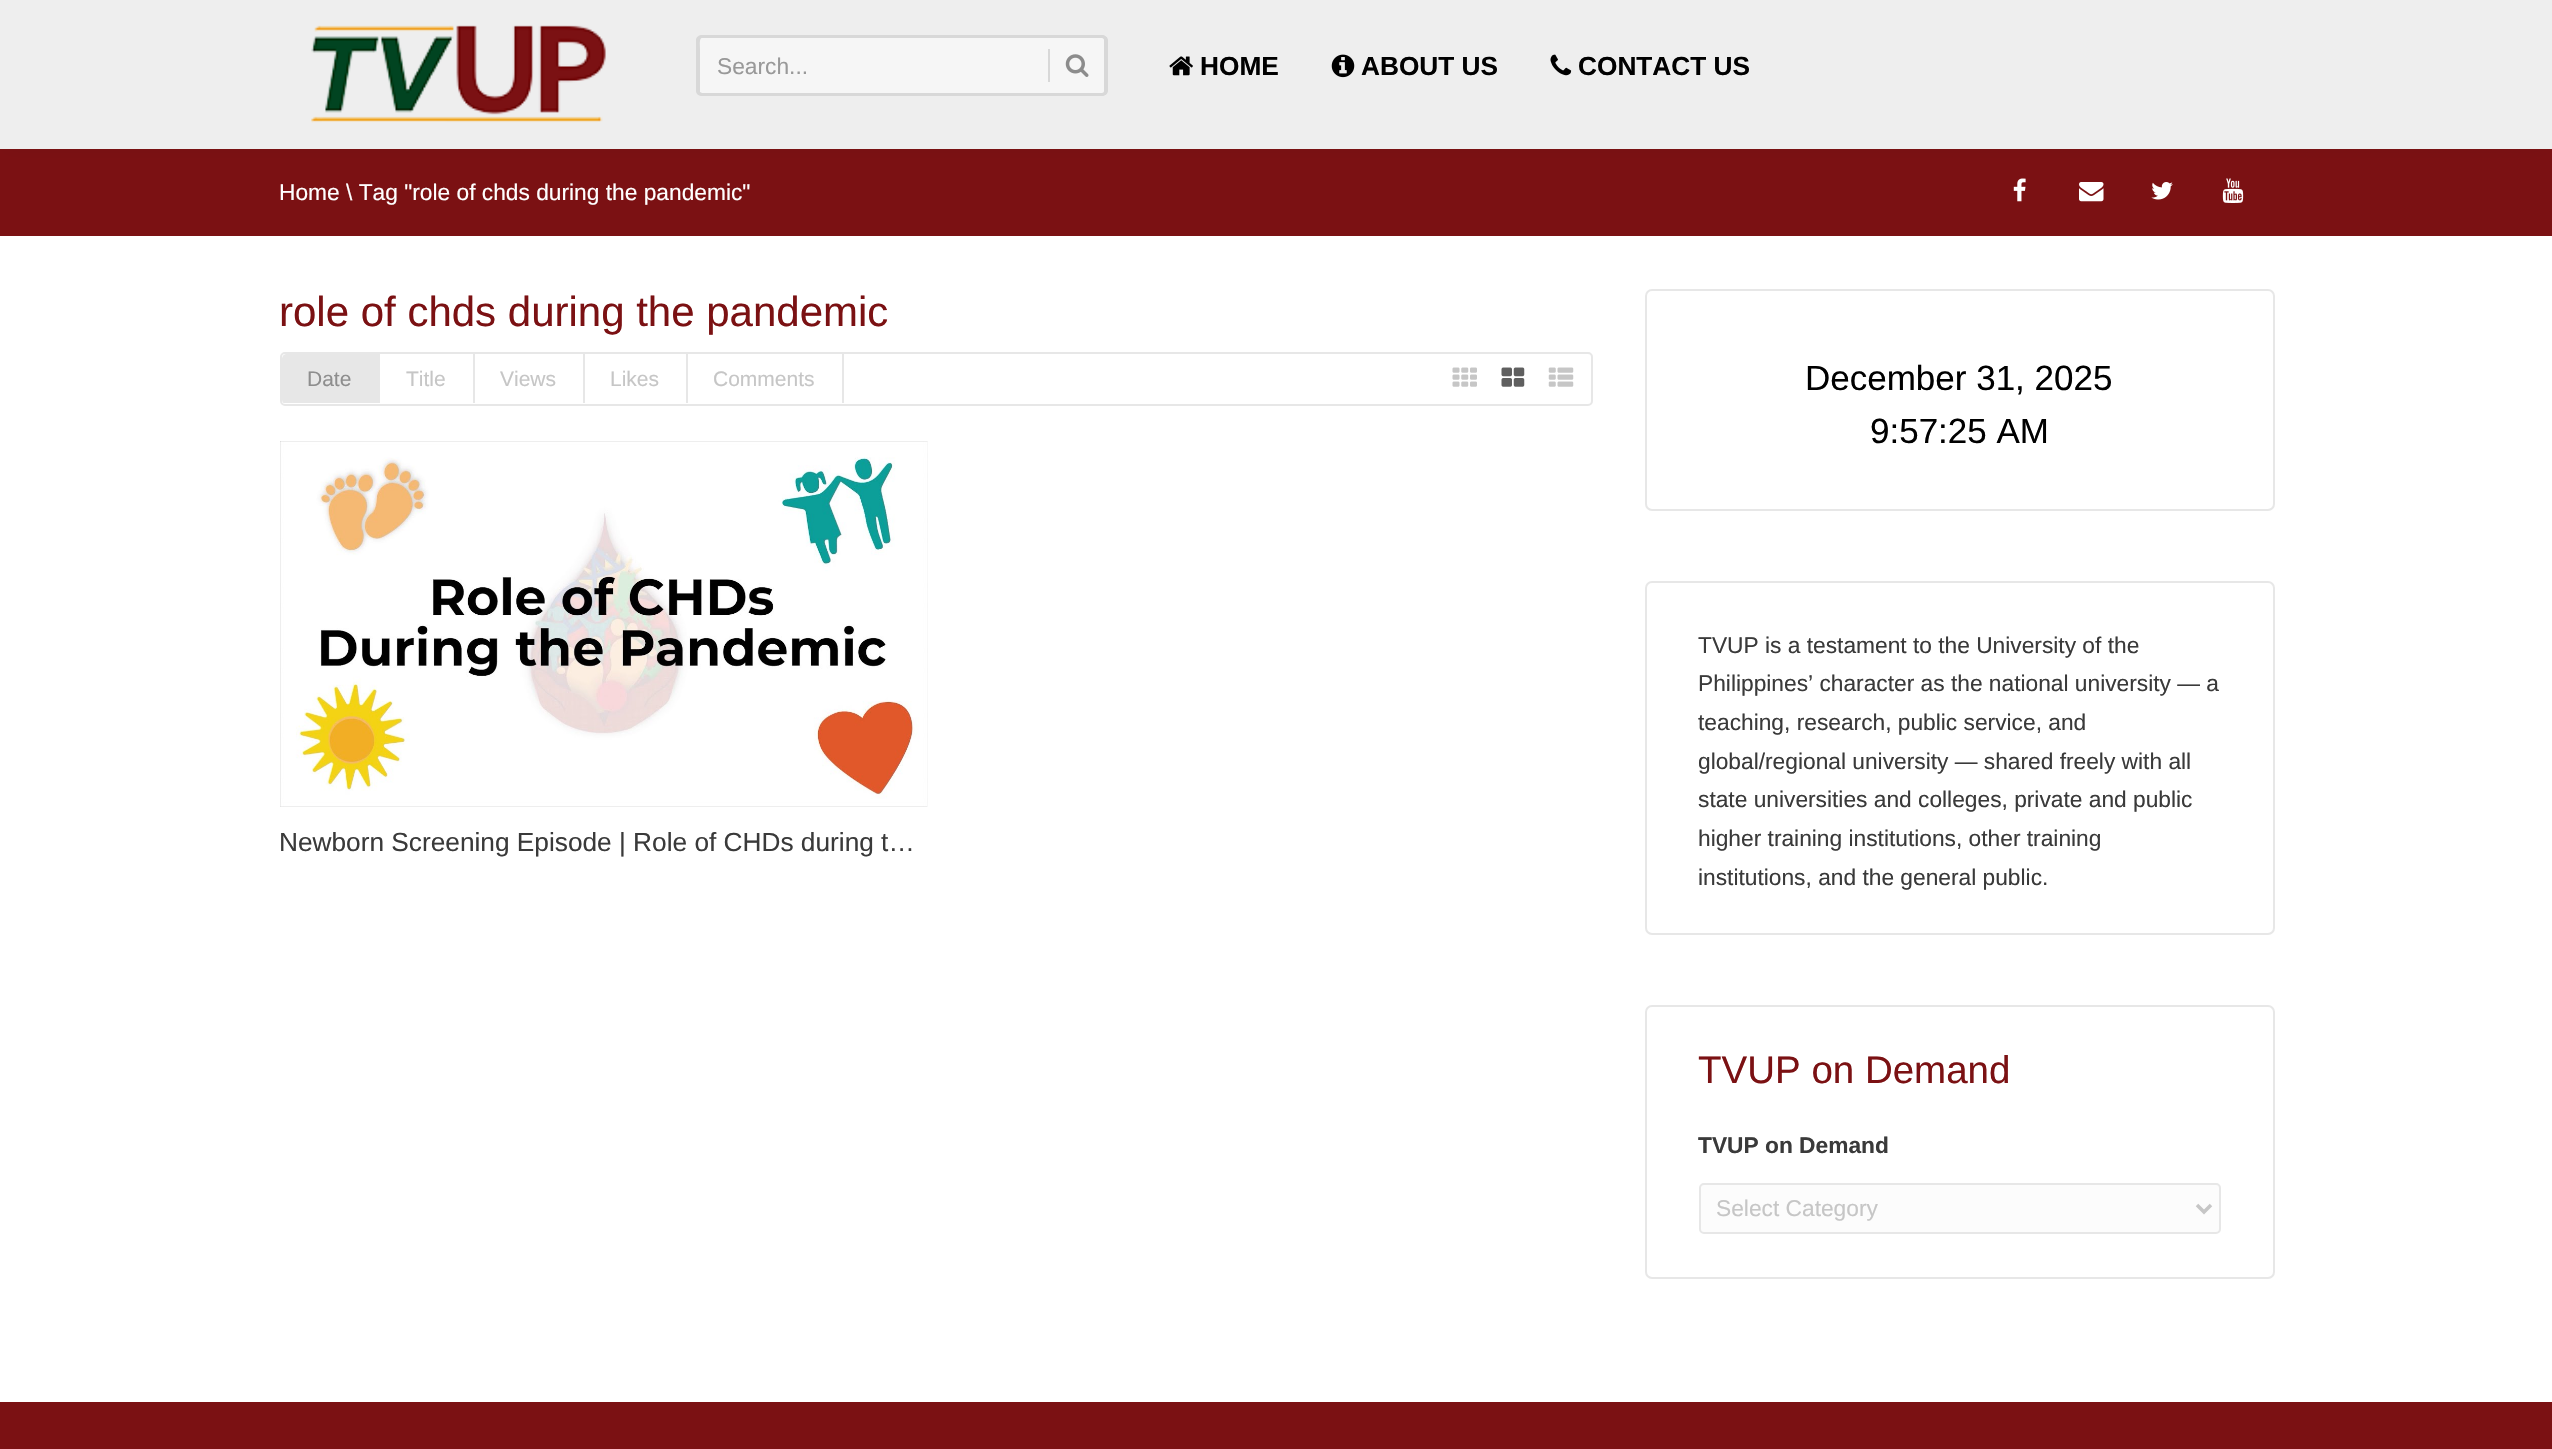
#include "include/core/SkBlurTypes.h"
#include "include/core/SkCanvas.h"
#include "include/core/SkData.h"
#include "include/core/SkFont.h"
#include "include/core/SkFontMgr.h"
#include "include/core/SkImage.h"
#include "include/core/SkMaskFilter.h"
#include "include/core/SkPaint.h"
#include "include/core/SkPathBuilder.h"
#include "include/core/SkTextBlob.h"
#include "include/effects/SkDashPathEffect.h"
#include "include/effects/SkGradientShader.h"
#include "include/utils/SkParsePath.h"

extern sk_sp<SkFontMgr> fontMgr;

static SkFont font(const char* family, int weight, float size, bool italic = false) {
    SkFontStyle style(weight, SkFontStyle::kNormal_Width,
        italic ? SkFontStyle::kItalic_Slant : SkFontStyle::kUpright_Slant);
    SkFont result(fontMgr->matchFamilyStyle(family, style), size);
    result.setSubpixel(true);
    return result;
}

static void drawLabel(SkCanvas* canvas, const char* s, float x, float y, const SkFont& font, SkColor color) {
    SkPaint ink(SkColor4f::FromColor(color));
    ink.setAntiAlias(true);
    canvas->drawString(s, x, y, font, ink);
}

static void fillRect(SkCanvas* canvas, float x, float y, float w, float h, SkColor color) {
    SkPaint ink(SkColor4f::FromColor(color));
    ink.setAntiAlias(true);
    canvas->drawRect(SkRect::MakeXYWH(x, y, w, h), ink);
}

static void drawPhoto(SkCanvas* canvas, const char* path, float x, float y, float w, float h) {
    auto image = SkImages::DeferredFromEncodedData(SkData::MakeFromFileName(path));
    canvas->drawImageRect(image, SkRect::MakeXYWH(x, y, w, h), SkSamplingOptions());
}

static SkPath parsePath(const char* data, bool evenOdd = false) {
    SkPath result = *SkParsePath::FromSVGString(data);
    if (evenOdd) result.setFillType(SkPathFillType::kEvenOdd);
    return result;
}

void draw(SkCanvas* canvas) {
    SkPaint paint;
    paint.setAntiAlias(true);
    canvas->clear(0xFFFFFFFF);
    fillRect(canvas, 0, 149, 2552, 87, 0xFF7B1113);
    paint.setColor(0x12000000);
    paint.setMaskFilter(SkMaskFilter::MakeBlur(kNormal_SkBlurStyle, 8));
    canvas->drawRect(SkRect::MakeXYWH(7, 11, 2539, 134), paint);
    paint.setMaskFilter(nullptr);
    fillRect(canvas, 0, 0, 2552, 149, 0xFFEEEEEE);
    drawPhoto(canvas, "assets/img1.png", 311, 25, 295, 98);
    paint.setColor(0xFFF6F6F6);
    canvas->drawPath(parsePath("M702 35H1048V96H702C699 96 697 94 697 91V40C697 37 699 35 702 35Z"), paint);
    paint.setColor(0xFFD8D8D8);
    canvas->drawPath(parsePath("M702 35H1048V96H702C699 96 696 94 696 91V40C696 37 699 35 702 35ZM702 38H1048V93H702L700 92V49C700 45 699 38 702 38Z", true), paint);
    SkFont font1 = font("Liberation Sans", 400, 22.75f);
    drawLabel(canvas, "Search...", 717, 74, font1, 0xFF999999);
    paint.setColor(0xFFF6F6F6);
    canvas->drawPath(parsePath("M1048 35H1103C1106 35 1108 37 1108 40V91C1108 94 1106 96 1103 96H1048Z"), paint);
    paint.setColor(0xFFD8D8D8);
    canvas->drawPath(parsePath("M1048 35H1102C1105 35 1108 37 1108 40V91C1108 94 1105 96 1102 96H1048ZM1048 38H1102C1103 38 1104 39 1104 40V91C1104 92 1103 93 1102 93H1048Z", true), paint);
    fillRect(canvas, 1048, 49, 2, 33, 0xFFD8D8D8);
    drawPhoto(canvas, "assets/img2.png", 1065, 54, 24, 23);
    drawPhoto(canvas, "assets/img3.png", 1169, 56, 24, 20);
    SkFont font2 = font("Liberation Sans", 700, 26.25f);
    drawLabel(canvas, "HOME", 1200, 75, font2, 0xFF000000);
    drawPhoto(canvas, "assets/img4.png", 1331, 54, 24, 24);
    drawLabel(canvas, "ABOUT US", 1361, 75, font2, 0xFF000000);
    drawPhoto(canvas, "assets/img5.png", 1550, 54, 22, 22);
    drawLabel(canvas, "CONTACT US", 1578, 75, font2, 0xFF000000);
    drawLabel(canvas, "Home \\ Tag \"role of chds during the pandemic\"", 279, 200, font1, 0xFFFFFFFF);
    drawPhoto(canvas, "assets/img6.png", 2013, 178, 13, 24);
    drawPhoto(canvas, "assets/img7.png", 2079, 182, 25, 20);
    drawPhoto(canvas, "assets/img8.png", 2151, 182, 22, 18);
    drawPhoto(canvas, "assets/img9.png", 2222, 178, 22, 25);
    SkFont font3 = font("Liberation Sans", 400, 42);
    drawLabel(canvas, "role of chds during the pandemic", 279, 326, font3, 0xFF7B1113);
    paint.setStroke(true);
    paint.setStrokeWidth(2);
    paint.setColor(0xFFE7E7E7);
    canvas->drawRoundRect(SkRect::MakeXYWH(281, 353, 1311, 52), 4, 4, paint);
    canvas->save();
    canvas->clipPath(parsePath("M286 354H1587C1589 354 1591 356 1591 358V400C1591 402 1589 404 1587 404H286C284 404 282 402 282 400V358C282 356 284 354 286 354Z"), true);
    paint.setStroke(false);
    canvas->drawPath(parsePath("M286 354H380V403H282V358C282 356 284 354 286 354Z"), paint);
    canvas->restore();
    SkFont font4 = font("Liberation Sans", 400, 21);
    drawLabel(canvas, "Date", 307, 386, font4, 0xFF8E8E8E);
    drawLabel(canvas, "Title", 406, 386, font4, 0xFFC6C6C6);
    fillRect(canvas, 473, 354, 2, 49, 0xFFE7E7E7);
    drawLabel(canvas, "Views", 500, 386, font4, 0xFFC6C6C6);
    fillRect(canvas, 583, 354, 2, 49, 0xFFE7E7E7);
    drawLabel(canvas, "Likes", 610, 386, font4, 0xFFC6C6C6);
    fillRect(canvas, 842, 354, 2, 49, 0xFFE7E7E7);
    fillRect(canvas, 686, 354, 2, 49, 0xFFE7E7E7);
    drawLabel(canvas, "Comments", 713, 386, font4, 0xFFC6C6C6);
    drawPhoto(canvas, "assets/img10.png", 1452, 367, 25, 20);
    drawPhoto(canvas, "assets/img11.png", 1501, 367, 24, 20);
    drawPhoto(canvas, "assets/img12.png", 1548, 367, 26, 20);
    drawPhoto(canvas, "assets/img13.png", 280, 441, 648, 366);
    SkFont font5 = font("Liberation Sans", 400, 26.25f);
    drawLabel(canvas, "Newborn Screening Episode | Role of CHDs during t…", 279, 851, font5, 0xFF3A3A3A);
    paint.setStroke(true);
    canvas->drawRoundRect(SkRect::MakeXYWH(1646, 290, 628, 220), 6, 6, paint);
    SkFont font6 = font("Liberation Sans", 400, 35);
    drawLabel(canvas, "December 31, 2025", 1805, 390, font6, 0xFF000000);
    drawLabel(canvas, "9:57:25 AM", 1870, 443, font6, 0xFF000000);
    canvas->drawRoundRect(SkRect::MakeXYWH(1646, 582, 628, 352), 6, 6, paint);
    drawLabel(canvas, "TVUP is a testament to the University of the", 1698, 653, font1, 0xFF3A3A3A);
    drawLabel(canvas, "Philippines’ character as the national university — a", 1698, 691, font1, 0xFF3A3A3A);
    drawLabel(canvas, "teaching, research, public service, and", 1698, 730, font1, 0xFF3A3A3A);
    drawLabel(canvas, "global/regional university — shared freely with all", 1698, 769, font1, 0xFF3A3A3A);
    drawLabel(canvas, "state universities and colleges, private and public", 1698, 807, font1, 0xFF3A3A3A);
    drawLabel(canvas, "higher training institutions, other training", 1698, 846, font1, 0xFF3A3A3A);
    drawLabel(canvas, "institutions, and the general public.", 1698, 885, font1, 0xFF3A3A3A);
    canvas->drawRoundRect(SkRect::MakeXYWH(1646, 1006, 628, 272), 6, 6, paint);
    SkFont font7 = font("Liberation Sans", 400, 38.5f);
    drawLabel(canvas, "TVUP on Demand", 1698, 1083, font7, 0xFF7B1113);
    SkFont font8 = font("Liberation Sans", 700, 22.75f);
    drawLabel(canvas, "TVUP on Demand", 1698, 1153, font8, 0xFF3A3A3A);
    paint.setStroke(false);
    paint.setColor(0xFFFCFCFC);
    canvas->drawRoundRect(SkRect::MakeXYWH(1700, 1184, 520, 49), 4, 4, paint);
    paint.setStroke(true);
    paint.setColor(0xFFE7E7E7);
    canvas->drawRoundRect(SkRect::MakeXYWH(1700, 1184, 520, 49), 4, 4, paint);
    paint.setStrokeWidth(3.5f);
    paint.setColor(0xFFC6C6C6);
    canvas->drawPath(parsePath("M2197 1205L2204 1212L2211 1205"), paint);
    drawLabel(canvas, "Select Category", 1716, 1216, font1, 0xFFC6C6C6);
    fillRect(canvas, 0, 1402, 2552, 47, 0xFF7B1113);
}
